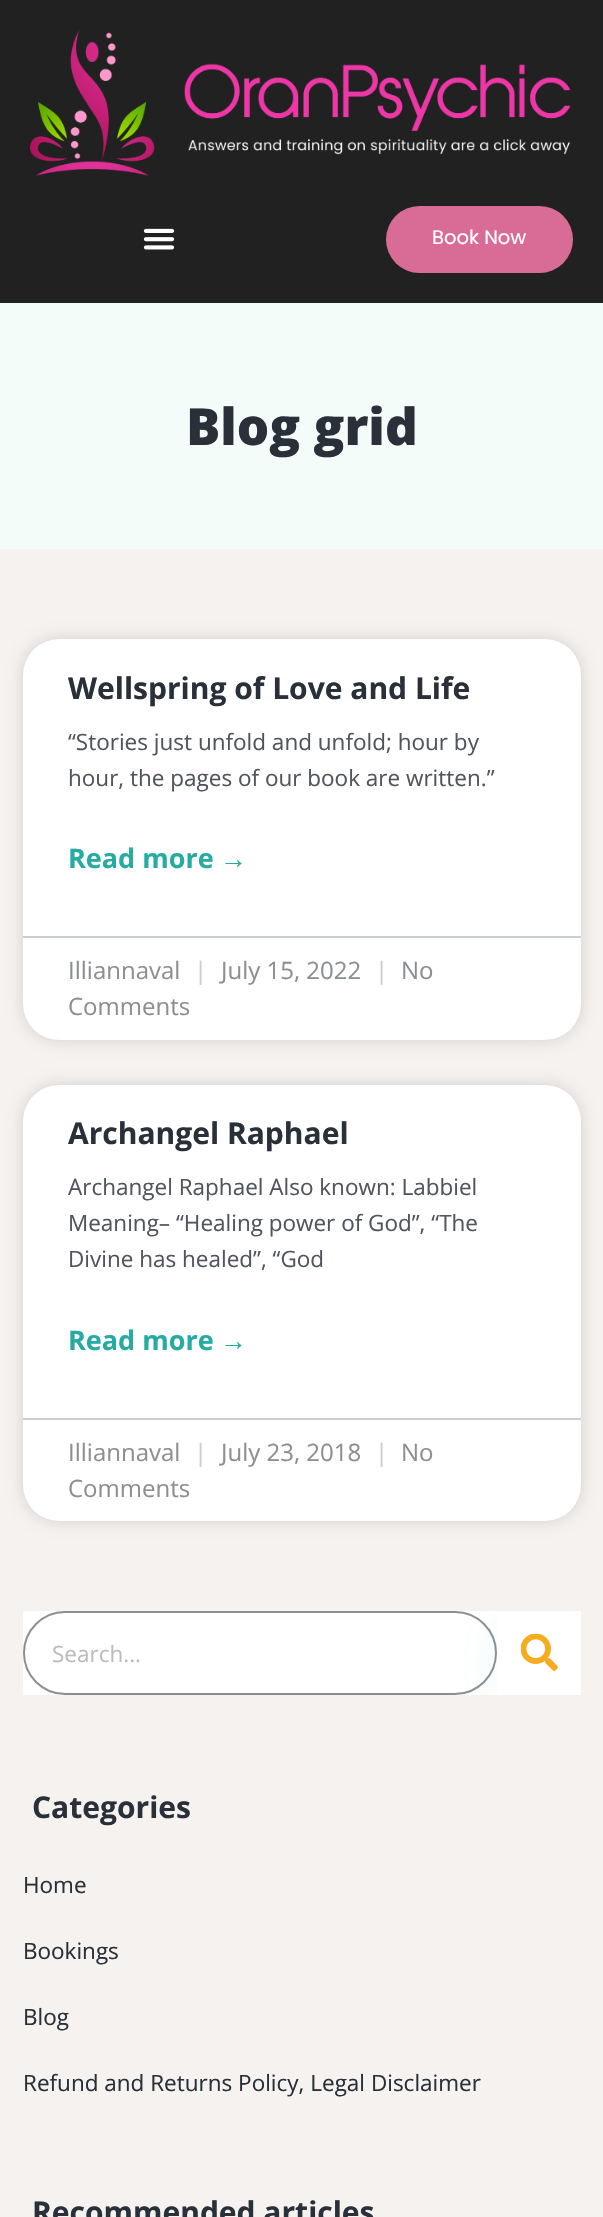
#include "include/core/SkBlurTypes.h"
#include "include/core/SkCanvas.h"
#include "include/core/SkData.h"
#include "include/core/SkFont.h"
#include "include/core/SkFontMgr.h"
#include "include/core/SkImage.h"
#include "include/core/SkMaskFilter.h"
#include "include/core/SkPaint.h"
#include "include/core/SkPathBuilder.h"
#include "include/core/SkTextBlob.h"
#include "include/effects/SkDashPathEffect.h"
#include "include/effects/SkGradientShader.h"
#include "include/utils/SkParsePath.h"

extern sk_sp<SkFontMgr> fontMgr;

static SkFont font(const char* family, int weight, float size, bool italic = false) {
    SkFontStyle style(weight, SkFontStyle::kNormal_Width,
        italic ? SkFontStyle::kItalic_Slant : SkFontStyle::kUpright_Slant);
    SkFont result(fontMgr->matchFamilyStyle(family, style), size);
    result.setSubpixel(true);
    return result;
}

static void drawLabel(SkCanvas* canvas, const char* s, float x, float y, const SkFont& font, SkColor color) {
    SkPaint ink(SkColor4f::FromColor(color));
    ink.setAntiAlias(true);
    canvas->drawString(s, x, y, font, ink);
}

static void fillRect(SkCanvas* canvas, float x, float y, float w, float h, SkColor color) {
    SkPaint ink(SkColor4f::FromColor(color));
    ink.setAntiAlias(true);
    canvas->drawRect(SkRect::MakeXYWH(x, y, w, h), ink);
}

static void fillRRect(SkCanvas* canvas, float x, float y, float w, float h, float radius, SkColor color) {
    SkPaint ink(SkColor4f::FromColor(color));
    ink.setAntiAlias(true);
    canvas->drawRoundRect(SkRect::MakeXYWH(x, y, w, h), radius, radius, ink);
}

static void drawPhoto(SkCanvas* canvas, const char* path, float x, float y, float w, float h) {
    auto image = SkImages::DeferredFromEncodedData(SkData::MakeFromFileName(path));
    canvas->drawImageRect(image, SkRect::MakeXYWH(x, y, w, h), SkSamplingOptions());
}

void draw(SkCanvas* canvas) {
    SkPaint paint;
    paint.setAntiAlias(true);
    canvas->clear(0xFFF6F2EF);
    fillRect(canvas, 0, 0, 603, 303, 0xFF212121);
    drawPhoto(canvas, "assets/img1.png", 30, 30, 541, 146);
    drawPhoto(canvas, "assets/img2.png", 143, 228, 32, 22);
    fillRRect(canvas, 386, 206, 187, 67, 33.5f, 0xFFD86C97);
    SkFont font1 = font("Poppins", 400, 19.5f);
    drawLabel(canvas, "Book Now", 432, 244, font1, 0xFFFFFFFF);
    fillRect(canvas, 0, 303, 603, 246, 0xFFF4FCFA);
    SkFont font2 = font("Open Sans", 800, 51);
    drawLabel(canvas, "Blog grid", 186, 445, font2, 0xFF293039);
    paint.setColor(0x26000000);
    paint.setMaskFilter(SkMaskFilter::MakeBlur(kNormal_SkBlurStyle, 7.5f));
    canvas->drawRoundRect(SkRect::MakeXYWH(23, 639, 558, 401), 36, 36, paint);
    paint.setMaskFilter(nullptr);
    fillRRect(canvas, 23, 639, 558, 401, 36, 0xFFFFFFFF);
    SkFont font3 = font("Open Sans", 700, 30);
    drawLabel(canvas, "Wellspring of Love and Life", 68, 699, font3, 0xFF293039);
    SkFont font4 = font("Open Sans", 400, 22.5f);
    drawLabel(canvas, "“Stories just unfold and unfold; hour by", 68, 750, font4, 0xFF51565D);
    drawLabel(canvas, "hour, the pages of our book are written.”", 68, 786, font4, 0xFF51565D);
    SkFont font5 = font("Open Sans", 700, 27);
    drawLabel(canvas, "Read more", 68, 868, font5, 0xFF26ABA3);
    SkFont font6 = font("Liberation Sans", 700, 27);
    drawLabel(canvas, "→", 220, 868, font6, 0xFF26ABA3);
    fillRect(canvas, 23, 936, 558, 2, 0xFFC9CED3);
    SkFont font7 = font("Open Sans", 400, 24);
    drawLabel(canvas, "Illiannaval", 68, 979, font7, 0xFF8C8F92);
    drawLabel(canvas, "|", 194, 979, font7, 0xFFC9CED3);
    drawLabel(canvas, "July 15, 2022", 221, 979, font7, 0xFF8C8F92);
    drawLabel(canvas, "|", 375, 979, font7, 0xFFC9CED3);
    drawLabel(canvas, "No", 401, 979, font7, 0xFF8C8F92);
    drawLabel(canvas, "Comments", 68, 1015, font7, 0xFF8C8F92);
    paint.setMaskFilter(SkMaskFilter::MakeBlur(kNormal_SkBlurStyle, 7.5f));
    canvas->drawRoundRect(SkRect::MakeXYWH(23, 1085, 558, 436), 36, 36, paint);
    paint.setMaskFilter(nullptr);
    fillRRect(canvas, 23, 1085, 558, 436, 36, 0xFFFFFFFF);
    drawLabel(canvas, "Archangel Raphael", 68, 1144, font3, 0xFF293039);
    drawLabel(canvas, "Archangel Raphael Also known: Labbiel", 68, 1195, font4, 0xFF51565D);
    drawLabel(canvas, "Meaning– “Healing power of God”, “The", 68, 1231, font4, 0xFF51565D);
    drawLabel(canvas, "Divine has healed”, “God", 68, 1267, font4, 0xFF51565D);
    drawLabel(canvas, "Read more", 68, 1350, font5, 0xFF26ABA3);
    drawLabel(canvas, "→", 220, 1350, font6, 0xFF26ABA3);
    fillRect(canvas, 23, 1418, 558, 2, 0xFFC9CED3);
    drawLabel(canvas, "Illiannaval", 68, 1461, font7, 0xFF8C8F92);
    drawLabel(canvas, "|", 194, 1461, font7, 0xFFC9CED3);
    drawLabel(canvas, "July 23, 2018", 221, 1461, font7, 0xFF8C8F92);
    drawLabel(canvas, "|", 375, 1461, font7, 0xFFC9CED3);
    drawLabel(canvas, "No", 401, 1461, font7, 0xFF8C8F92);
    drawLabel(canvas, "Comments", 68, 1497, font7, 0xFF8C8F92);
    fillRect(canvas, 23, 1611, 474, 84, 0xFFFFFFFF);
    paint.setStroke(true);
    paint.setStrokeWidth(2);
    paint.setColor(0xFF8C8F92);
    canvas->drawRoundRect(SkRect::MakeXYWH(24, 1612, 472, 82), 41, 41, paint);
    drawLabel(canvas, "Search...", 52, 1662, font4, 0xFFBABCBE);
    canvas->save();
    canvas->clipRect(SkRect::MakeXYWH(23, 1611, 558, 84));
    paint.setStroke(false);
    paint.setColor(0x1226ABA3);
    paint.setMaskFilter(SkMaskFilter::MakeBlur(kNormal_SkBlurStyle, 22.5f));
    canvas->drawRect(SkRect::MakeXYWH(497, 1623, 84, 84), paint);
    paint.setMaskFilter(nullptr);
    canvas->restore();
    fillRect(canvas, 497, 1611, 84, 84, 0xFFFFFFFF);
    drawPhoto(canvas, "assets/img3.png", 521, 1634, 37, 37);
    drawLabel(canvas, "Categories", 32, 1818, font3, 0xFF293039);
    drawLabel(canvas, "Home", 23, 1893, font4, 0xFF293039);
    drawLabel(canvas, "Bookings", 23, 1959, font4, 0xFF293039);
    drawLabel(canvas, "Blog", 23, 2025, font4, 0xFF293039);
    drawLabel(canvas, "Refund and Returns Policy, Legal Disclaimer", 23, 2091, font4, 0xFF293039);
    drawLabel(canvas, "Recommended articles", 32, 2223, font3, 0xFF293039);
}
